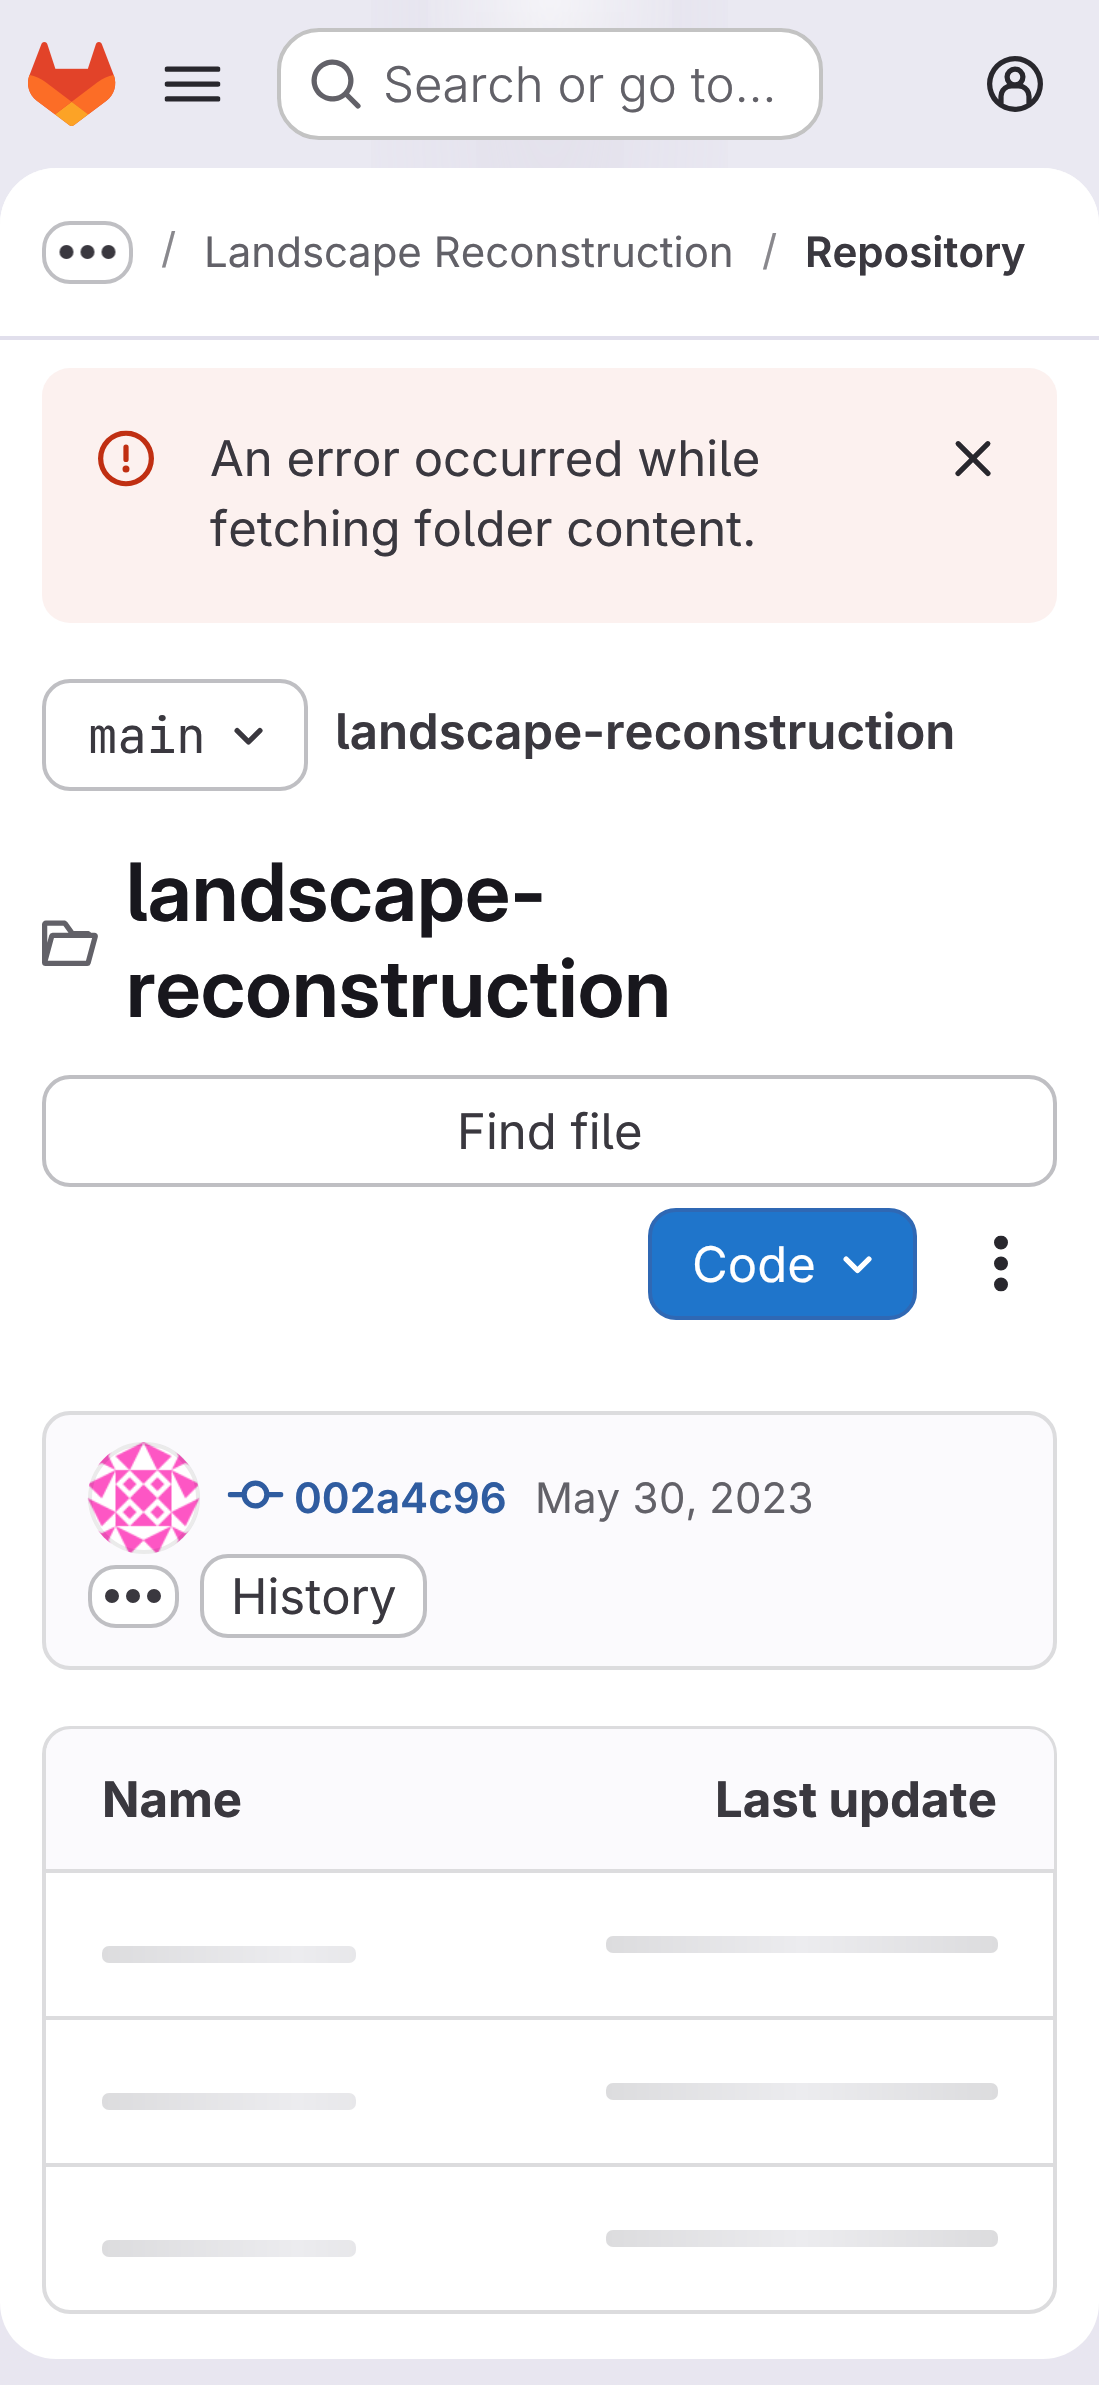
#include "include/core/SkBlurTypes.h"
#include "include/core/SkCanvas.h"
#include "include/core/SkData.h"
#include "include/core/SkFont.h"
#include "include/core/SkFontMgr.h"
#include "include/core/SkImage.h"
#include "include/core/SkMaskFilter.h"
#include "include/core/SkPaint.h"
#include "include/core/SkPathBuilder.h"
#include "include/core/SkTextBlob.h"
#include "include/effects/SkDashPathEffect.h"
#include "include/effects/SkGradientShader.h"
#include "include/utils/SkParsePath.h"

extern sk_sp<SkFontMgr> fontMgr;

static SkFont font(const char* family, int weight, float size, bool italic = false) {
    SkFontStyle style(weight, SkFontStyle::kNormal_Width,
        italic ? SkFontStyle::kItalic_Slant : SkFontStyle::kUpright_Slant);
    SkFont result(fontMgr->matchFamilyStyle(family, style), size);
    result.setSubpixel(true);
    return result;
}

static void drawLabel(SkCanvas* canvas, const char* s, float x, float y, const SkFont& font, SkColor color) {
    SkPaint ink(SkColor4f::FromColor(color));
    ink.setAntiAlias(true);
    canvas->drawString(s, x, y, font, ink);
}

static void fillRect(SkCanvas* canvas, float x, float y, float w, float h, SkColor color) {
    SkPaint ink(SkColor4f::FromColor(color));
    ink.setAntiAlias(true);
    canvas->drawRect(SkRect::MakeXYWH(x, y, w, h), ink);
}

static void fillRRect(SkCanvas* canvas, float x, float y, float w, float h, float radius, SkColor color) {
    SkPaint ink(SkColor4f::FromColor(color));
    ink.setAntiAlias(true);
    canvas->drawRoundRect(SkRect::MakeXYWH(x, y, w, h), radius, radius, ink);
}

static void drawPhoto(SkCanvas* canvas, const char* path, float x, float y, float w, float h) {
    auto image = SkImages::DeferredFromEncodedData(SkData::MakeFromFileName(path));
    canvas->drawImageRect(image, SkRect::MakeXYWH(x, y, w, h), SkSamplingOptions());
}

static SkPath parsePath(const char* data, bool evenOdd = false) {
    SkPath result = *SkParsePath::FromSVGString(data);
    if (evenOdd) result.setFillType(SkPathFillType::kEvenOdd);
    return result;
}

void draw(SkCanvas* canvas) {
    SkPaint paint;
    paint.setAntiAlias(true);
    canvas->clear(0xFFFFFFFF);
    {
        const SkColor colors[] = {0xFFE8E6F0, 0xFFEAE9F2};
        const float stops[] = {0, 0.7f};
        const SkPoint ends[] = {{770, 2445}, {329, -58}};
        paint.setShader(SkGradientShader::MakeLinear(ends, colors, stops, 2, SkTileMode::kClamp));
        paint.setAlpha(255);
    }
    canvas->drawRect(SkRect::MakeXYWH(0, 0, 1099, 2385), paint);
    {
        const SkColor colors[] = {0xFFE4E2ED, 0x00E4E2ED};
        const float stops[] = {0, 0.45f};
        SkMatrix m = SkMatrix::Translate(550, 0).preScale(550, 2387);
        paint.setShader(SkGradientShader::MakeRadial({0, 0}, 1, colors, stops, 2, SkTileMode::kClamp, 0, &m));
        paint.setAlpha(255);
    }
    canvas->drawRect(SkRect::MakeXYWH(371, 0, 357, 168), paint);
    {
        const SkColor colors[] = {0xFFE4E2EC, 0x00E4E2EC};
        const float stops[] = {0, 0.32f};
        SkMatrix m = SkMatrix::Translate(550, 0).preScale(550, 2387);
        paint.setShader(SkGradientShader::MakeRadial({0, 0}, 1, colors, stops, 2, SkTileMode::kClamp, 0, &m));
        paint.setAlpha(255);
    }
    canvas->drawRect(SkRect::MakeXYWH(476, 12, 148, 156), paint);
    {
        const SkColor colors[] = {0x99FFFFFF, 0x00FFFFFF};
        const float stops[] = {0, 0.06f};
        paint.setShader(SkGradientShader::MakeRadial({550, 0}, 2449, colors, stops, 2, SkTileMode::kClamp));
        paint.setAlpha(255);
    }
    canvas->drawRect(SkRect::MakeXYWH(428, 0, 244, 125), paint);
    drawPhoto(canvas, "assets/img1.png", 28, 42, 88, 84);
    drawPhoto(canvas, "assets/img2.png", 164, 66, 57, 36);
    fillRRect(canvas, 277, 28, 546, 112, 42, 0xFFFFFFFF);
    paint.setStroke(true);
    paint.setStrokeWidth(4);
    paint.setShader(nullptr);
    paint.setColor(0x3D050506);
    canvas->drawRoundRect(SkRect::MakeXYWH(279, 30, 542, 108), 40, 40, paint);
    drawPhoto(canvas, "assets/img3.png", 311, 59, 50, 50);
    SkFont font1 = font("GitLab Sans", 300, 49);
    drawLabel(canvas, "Search or go to…", 383, 102, font1, 0xFF626168);
    drawPhoto(canvas, "assets/img4.png", 987, 56, 56, 56);
    fillRRect(canvas, 0, 168, 1099, 2191, 56, 0xFFFFFFFF);
    paint.setStroke(false);
    paint.setColor(0xFFFFFFFF);
    canvas->drawPath(parsePath("M56 168H1043C1074 168 1099 193 1099 224V340H0V224C0 193 25 168 56 168Z"), paint);
    fillRect(canvas, 0, 336, 1099, 4, 0xFFE1DFEC);
    paint.setStroke(true);
    paint.setColor(0xFFBFBFC3);
    canvas->drawRoundRect(SkRect::MakeXYWH(44, 223, 87, 59), 26, 26, paint);
    drawPhoto(canvas, "assets/img5.png", 59, 245, 57, 14);
    SkFont font2 = font("GitLab Sans", 400, 42);
    drawLabel(canvas, "/", 161, 263, font2, 0xFF89888D);
    drawLabel(canvas, "Landscape Reconstruction", 204, 267, font2, 0xFF626168);
    drawLabel(canvas, "/", 762, 265, font2, 0xFF89888D);
    SkFont font3 = font("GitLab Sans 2", 600, 42);
    drawLabel(canvas, "Repository", 805, 267, font3, 0xFF3A383F);
    fillRRect(canvas, 42, 368, 1015, 255, 28, 0xFFFCF1EF);
    drawPhoto(canvas, "assets/img6.png", 98, 430, 56, 57);
    SkFont font4 = font("GitLab Sans", 400, 49);
    drawLabel(canvas, "An error occurred while", 210, 476, font4, 0xFF3A383F);
    drawLabel(canvas, "fetching folder content.", 210, 546, font4, 0xFF3A383F);
    drawPhoto(canvas, "assets/img7.png", 955, 441, 36, 36);
    canvas->drawRoundRect(SkRect::MakeXYWH(44, 681, 262, 108), 26, 26, paint);
    SkFont font5 = font("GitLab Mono", 400, 49);
    drawLabel(canvas, "main", 88, 753, font5, 0xFF3A383F);
    drawPhoto(canvas, "assets/img8.png", 234, 727, 29, 18);
    SkFont font6 = font("GitLab Sans 2", 600, 49);
    drawLabel(canvas, "landscape-reconstruction", 335, 749, font6, 0xFF3A383F);
    SkFont font7 = font("GitLab Sans", 600, 80.5f);
    drawLabel(canvas, "landscape-", 126, 921, font7, 0xFF18171D);
    drawPhoto(canvas, "assets/img9.png", 42, 920, 56, 46);
    drawLabel(canvas, "reconstruction", 126, 1017, font7, 0xFF18171D);
    canvas->drawRoundRect(SkRect::MakeXYWH(44, 1077, 1011, 108), 26, 26, paint);
    drawLabel(canvas, "Find file", 457, 1149, font4, 0xFF3A383F);
    paint.setStroke(false);
    paint.setColor(0xFF1F75CB);
    canvas->drawRoundRect(SkRect::MakeXYWH(650, 1210, 265, 108), 26, 26, paint);
    paint.setStroke(true);
    paint.setColor(0xFF2F68B4);
    canvas->drawRoundRect(SkRect::MakeXYWH(650, 1210, 265, 108), 26, 26, paint);
    drawLabel(canvas, "Code", 692, 1282, font4, 0xFFFFFFFF);
    drawPhoto(canvas, "assets/img10.png", 843, 1256, 29, 18);
    drawPhoto(canvas, "assets/img11.png", 994, 1235, 14, 57);
    paint.setStroke(false);
    paint.setColor(0xFFFBFAFD);
    canvas->drawRoundRect(SkRect::MakeXYWH(44, 1413, 1011, 255), 26, 26, paint);
    paint.setStroke(true);
    paint.setColor(0xFFDCDCDE);
    canvas->drawRoundRect(SkRect::MakeXYWH(44, 1413, 1011, 255), 26, 26, paint);
    drawPhoto(canvas, "assets/img12.png", 87, 1442, 113, 112);
    paint.setColor(0x14050506);
    canvas->drawCircle(144, 1498, 54, paint);
    drawPhoto(canvas, "assets/img13.png", 227, 1480, 57, 29);
    drawLabel(canvas, "002a4c96", 294, 1513, font3, 0xFF2F5CA0);
    drawLabel(canvas, "May 30, 2023", 535, 1513, font2, 0xFF626168);
    paint.setStroke(false);
    paint.setColor(0xFFFFFFFF);
    canvas->drawRoundRect(SkRect::MakeXYWH(90, 1567, 87, 59), 26, 26, paint);
    paint.setStroke(true);
    paint.setColor(0xFFBFBFC3);
    canvas->drawRoundRect(SkRect::MakeXYWH(90, 1567, 87, 59), 26, 26, paint);
    drawPhoto(canvas, "assets/img14.png", 105, 1589, 56, 14);
    paint.setStroke(false);
    paint.setColor(0xFFFFFFFF);
    canvas->drawRoundRect(SkRect::MakeXYWH(202, 1556, 223, 80), 26, 26, paint);
    paint.setStroke(true);
    paint.setColor(0xFFBFBFC3);
    canvas->drawRoundRect(SkRect::MakeXYWH(202, 1556, 223, 80), 26, 26, paint);
    drawLabel(canvas, "History", 231, 1614, font4, 0xFF3A383F);
    paint.setColor(0xFFDCDCDE);
    canvas->drawRoundRect(SkRect::MakeXYWH(44, 1728, 1011, 584), 26, 26, paint);
    paint.setStroke(false);
    paint.setColor(0xFFFBFAFD);
    canvas->drawPath(parsePath("M71 1729H550V1873H46V1754C46 1740 57 1729 71 1729Z"), paint);
    SkFont font8 = font("GitLab Sans", 700, 49);
    drawLabel(canvas, "Name", 102, 1817, font8, 0xFF3A383F);
    canvas->drawPath(parsePath("M550 1729H1029C1043 1729 1054 1740 1054 1754V1873H550Z"), paint);
    drawLabel(canvas, "Last update", 715, 1817, font8, 0xFF3A383F);
    fillRect(canvas, 46, 1869, 1008, 4, 0xFFDCDCDE);
    {
        const SkColor colors[] = {0xFFDCDCDE, 0xFFECECEF, 0xFFDCDCDE};
        const float stops[] = {0, 0.5f, 1};
        const SkPoint ends[] = {{606, 1936}, {998, 1936}};
        paint.setShader(SkGradientShader::MakeLinear(ends, colors, stops, 3, SkTileMode::kClamp));
        paint.setAlpha(255);
    }
    canvas->drawRoundRect(SkRect::MakeXYWH(606, 1936, 392, 17), 7, 7, paint);
    {
        const SkColor colors[] = {0xFFDCDCDE, 0xFFECECEF, 0xFFDCDCDE};
        const float stops[] = {0, 0.5f, 1};
        const SkPoint ends[] = {{102, 1946}, {493, 1946}};
        paint.setShader(SkGradientShader::MakeLinear(ends, colors, stops, 3, SkTileMode::kClamp));
        paint.setAlpha(255);
    }
    canvas->drawRoundRect(SkRect::MakeXYWH(102, 1946, 254, 17), 7, 7, paint);
    fillRect(canvas, 46, 2016, 1008, 4, 0xFFDCDCDE);
    {
        const SkColor colors[] = {0xFFDCDCDE, 0xFFECECEF, 0xFFDCDCDE};
        const float stops[] = {0, 0.5f, 1};
        const SkPoint ends[] = {{606, 2083}, {998, 2083}};
        paint.setShader(SkGradientShader::MakeLinear(ends, colors, stops, 3, SkTileMode::kClamp));
        paint.setAlpha(255);
    }
    canvas->drawRoundRect(SkRect::MakeXYWH(606, 2083, 392, 17), 7, 7, paint);
    {
        const SkColor colors[] = {0xFFDCDCDE, 0xFFECECEF, 0xFFDCDCDE};
        const float stops[] = {0, 0.5f, 1};
        const SkPoint ends[] = {{102, 2093}, {493, 2093}};
        paint.setShader(SkGradientShader::MakeLinear(ends, colors, stops, 3, SkTileMode::kClamp));
        paint.setAlpha(255);
    }
    canvas->drawRoundRect(SkRect::MakeXYWH(102, 2093, 254, 17), 7, 7, paint);
    fillRect(canvas, 46, 2163, 1008, 4, 0xFFDCDCDE);
    {
        const SkColor colors[] = {0xFFDCDCDE, 0xFFECECEF, 0xFFDCDCDE};
        const float stops[] = {0, 0.5f, 1};
        const SkPoint ends[] = {{606, 2230}, {998, 2230}};
        paint.setShader(SkGradientShader::MakeLinear(ends, colors, stops, 3, SkTileMode::kClamp));
        paint.setAlpha(255);
    }
    canvas->drawRoundRect(SkRect::MakeXYWH(606, 2230, 392, 17), 7, 7, paint);
    {
        const SkColor colors[] = {0xFFDCDCDE, 0xFFECECEF, 0xFFDCDCDE};
        const float stops[] = {0, 0.5f, 1};
        const SkPoint ends[] = {{102, 2240}, {493, 2240}};
        paint.setShader(SkGradientShader::MakeLinear(ends, colors, stops, 3, SkTileMode::kClamp));
        paint.setAlpha(255);
    }
    canvas->drawRoundRect(SkRect::MakeXYWH(102, 2240, 254, 17), 7, 7, paint);
}
